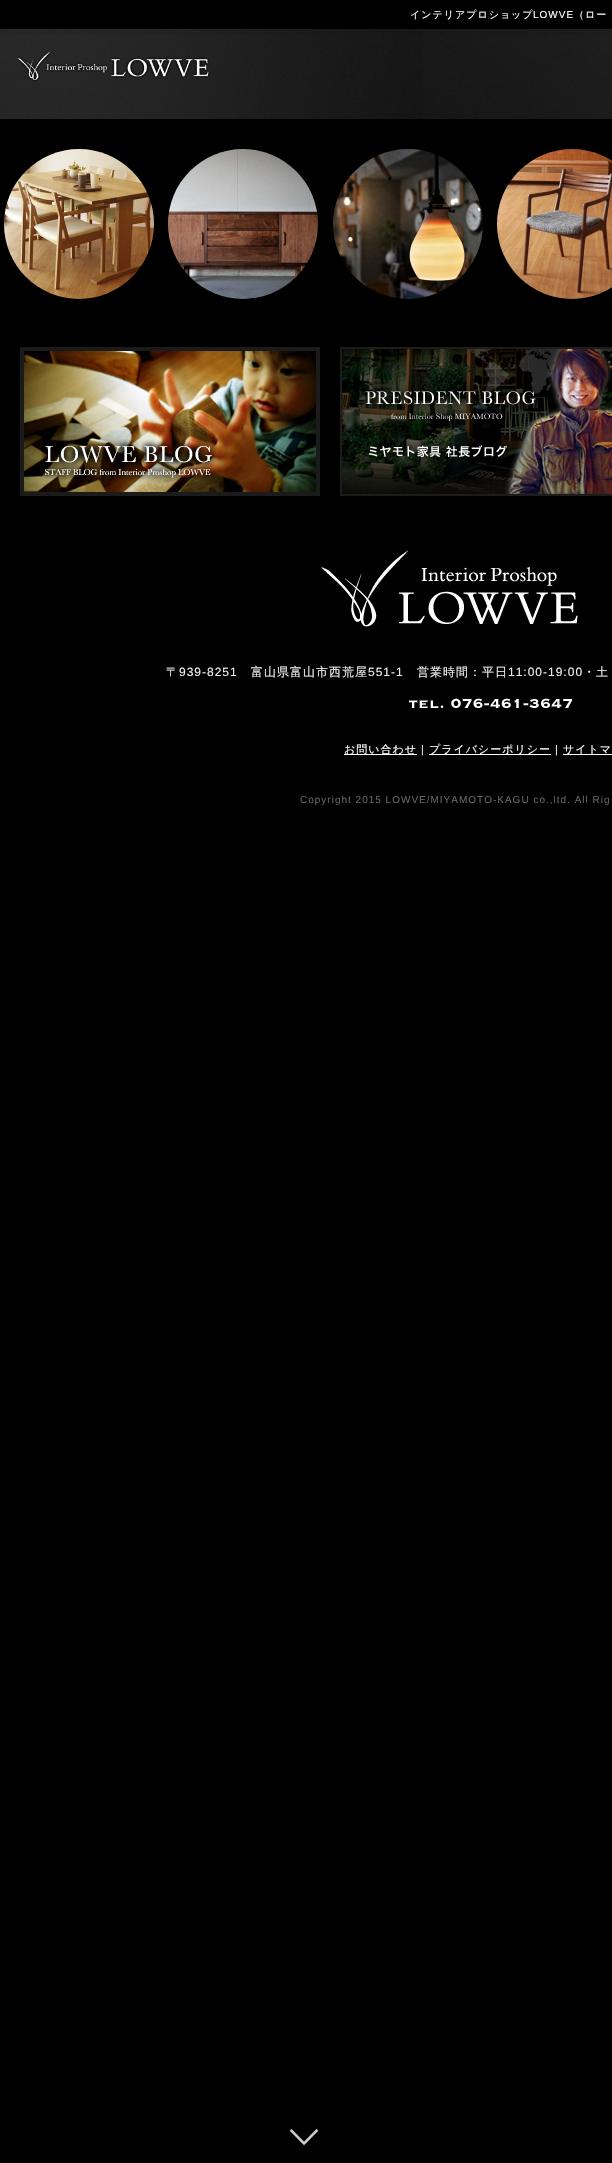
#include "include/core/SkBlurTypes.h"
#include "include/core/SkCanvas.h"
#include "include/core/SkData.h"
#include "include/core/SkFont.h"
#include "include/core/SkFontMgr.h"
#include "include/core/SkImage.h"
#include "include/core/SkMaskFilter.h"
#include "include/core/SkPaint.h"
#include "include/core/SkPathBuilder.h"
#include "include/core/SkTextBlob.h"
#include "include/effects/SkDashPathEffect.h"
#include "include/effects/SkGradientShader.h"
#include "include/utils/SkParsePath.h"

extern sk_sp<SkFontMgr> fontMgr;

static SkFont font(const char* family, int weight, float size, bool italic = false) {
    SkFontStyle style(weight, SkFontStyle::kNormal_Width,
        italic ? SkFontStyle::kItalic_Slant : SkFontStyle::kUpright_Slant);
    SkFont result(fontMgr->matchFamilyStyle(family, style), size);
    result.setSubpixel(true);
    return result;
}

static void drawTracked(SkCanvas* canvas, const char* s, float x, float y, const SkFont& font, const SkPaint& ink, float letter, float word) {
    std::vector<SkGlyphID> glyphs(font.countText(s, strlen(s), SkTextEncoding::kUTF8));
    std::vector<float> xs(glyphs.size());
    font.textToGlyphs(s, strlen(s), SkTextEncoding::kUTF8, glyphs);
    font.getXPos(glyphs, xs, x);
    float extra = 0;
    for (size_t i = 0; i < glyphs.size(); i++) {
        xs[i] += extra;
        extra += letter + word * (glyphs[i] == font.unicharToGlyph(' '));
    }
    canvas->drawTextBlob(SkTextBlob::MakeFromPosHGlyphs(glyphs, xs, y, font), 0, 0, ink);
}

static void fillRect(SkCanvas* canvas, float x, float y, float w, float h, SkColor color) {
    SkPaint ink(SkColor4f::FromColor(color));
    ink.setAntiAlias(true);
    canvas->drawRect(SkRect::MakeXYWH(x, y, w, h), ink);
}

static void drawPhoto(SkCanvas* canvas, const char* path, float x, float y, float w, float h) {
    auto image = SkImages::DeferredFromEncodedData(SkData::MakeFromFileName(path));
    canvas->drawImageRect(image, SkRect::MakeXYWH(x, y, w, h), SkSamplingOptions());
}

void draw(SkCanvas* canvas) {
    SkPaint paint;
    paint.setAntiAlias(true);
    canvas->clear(0xFF000000);
    SkFont font1 = font("WenQuanYi Zen Hei", 500, 10);
    paint.setColor(0xFFFFFFFF);
    drawTracked(canvas, "インテリアプロショップ", 410, 18, font1, paint, 1, 0);
    SkFont font2 = font("Liberation Sans", 400, 10);
    drawTracked(canvas, "LOWVE", 533, 18, font2, paint, 1, 0);
    drawTracked(canvas, "（ロー", 574, 18, font1, paint, 1, 0);
    drawPhoto(canvas, "assets/img1.png", 0, 29, 612, 90);
    drawPhoto(canvas, "assets/img2.png", 17, 51, 193, 31);
    drawPhoto(canvas, "assets/img3.png", 4, 149, 150, 150);
    drawPhoto(canvas, "assets/img4.png", 168, 149, 150, 150);
    drawPhoto(canvas, "assets/img5.png", 333, 149, 150, 150);
    drawPhoto(canvas, "assets/img6.png", 497, 149, 115, 150);
    drawPhoto(canvas, "assets/img7.png", 20, 347, 300, 149);
    drawPhoto(canvas, "assets/img8.png", 340, 347, 272, 149);
    drawPhoto(canvas, "assets/img9.png", 321, 550, 257, 77);
    SkFont font3 = font("WenQuanYi Zen Hei", 500, 12);
    paint.setColor(0xFFEEEEEE);
    drawTracked(canvas, "〒", 166, 676, font3, paint, 1, 0);
    SkFont font4 = font("Liberation Sans", 400, 12);
    drawTracked(canvas, "939-8251", 179, 676, font4, paint, 1, 0);
    drawTracked(canvas, "富山県富山市西荒屋", 251, 676, font3, paint, 1, 0);
    drawTracked(canvas, "551-1", 368, 676, font4, paint, 1, 0);
    drawTracked(canvas, "営業時間：平日", 417, 676, font3, paint, 1, 0);
    drawTracked(canvas, "11:00-19:00", 508, 676, font4, paint, 1, 0);
    drawTracked(canvas, "・土", 583, 676, font3, paint, 1, 0);
    drawPhoto(canvas, "assets/img10.png", 409, 698, 163, 11);
    fillRect(canvas, 344, 754, 73, 1, 0xFFFFFFFF);
    SkFont font5 = font("WenQuanYi Zen Hei", 500, 11);
    paint.setColor(0xFFFFFFFF);
    drawTracked(canvas, "お問い合わせ", 344, 753, font5, paint, 1, 0);
    SkFont font6 = font("Liberation Sans", 400, 11);
    paint.setColor(0xFFEEEEEE);
    drawTracked(canvas, "|", 421, 753, font6, paint, 1, 0);
    fillRect(canvas, 429, 754, 122, 1, 0xFFFFFFFF);
    paint.setColor(0xFFFFFFFF);
    drawTracked(canvas, "プライバシーポリシー", 429, 753, font5, paint, 1, 0);
    paint.setColor(0xFFEEEEEE);
    drawTracked(canvas, "|", 555, 753, font6, paint, 1, 0);
    fillRect(canvas, 563, 754, 49, 1, 0xFFFFFFFF);
    paint.setColor(0xFFFFFFFF);
    drawTracked(canvas, "サイトマ", 563, 753, font5, paint, 1, 0);
    paint.setColor(0xFF656565);
    drawTracked(canvas, "Copyright 2015 LOWVE/MIYAMOTO-KAGU co.,ltd. All Rig", 300, 803, font2, paint, 1, 0);
    drawPhoto(canvas, "assets/img11.png", 290, 2129, 28, 16);
}
